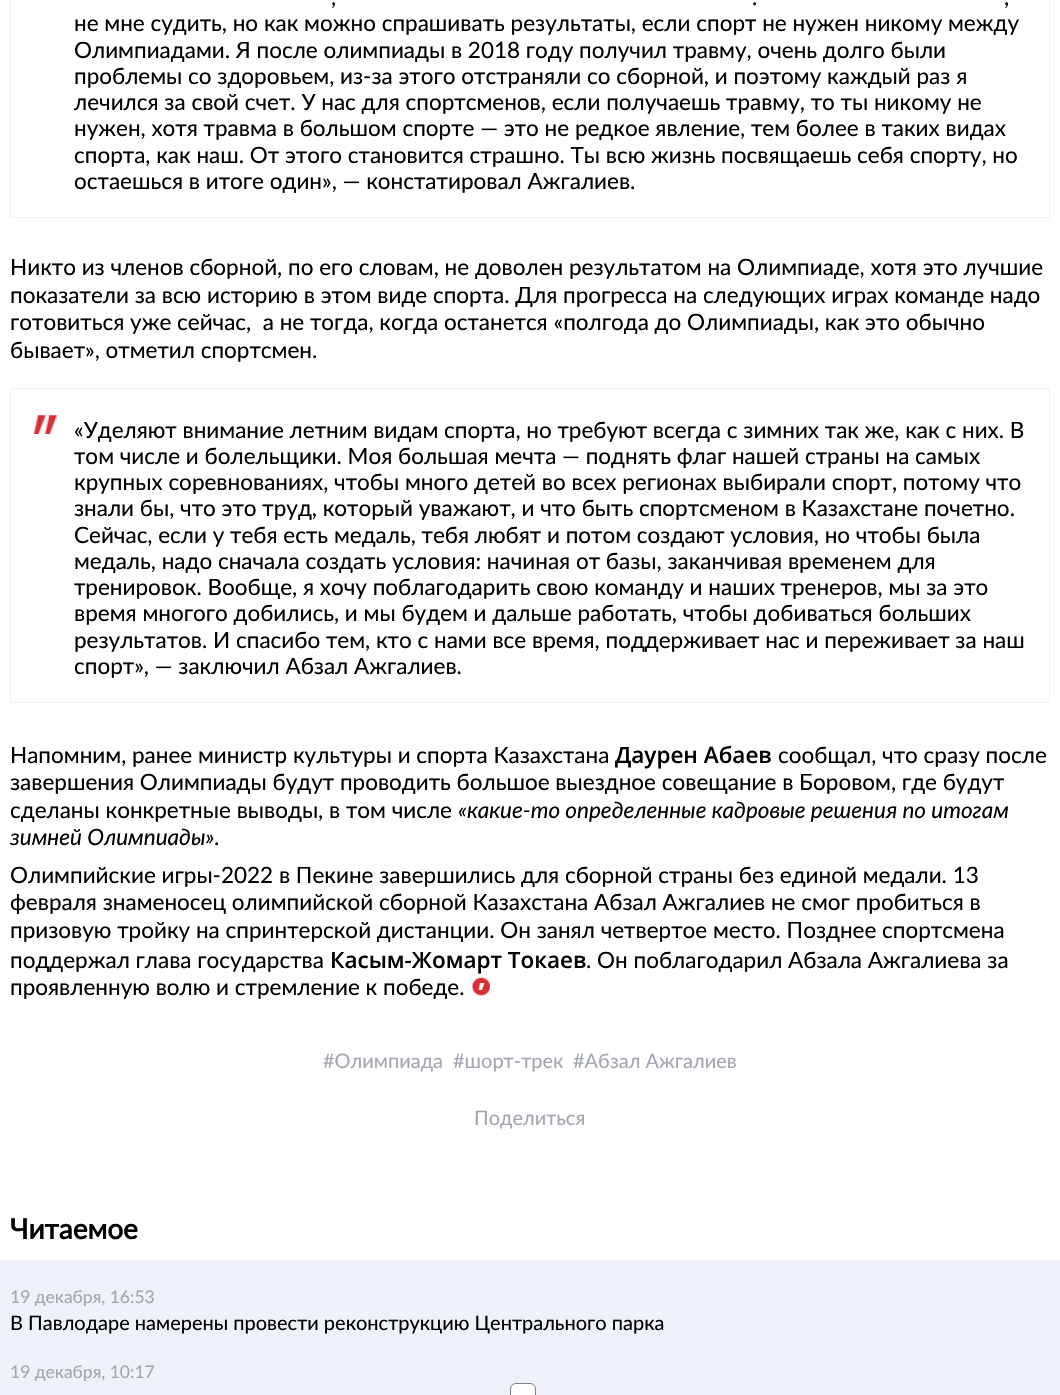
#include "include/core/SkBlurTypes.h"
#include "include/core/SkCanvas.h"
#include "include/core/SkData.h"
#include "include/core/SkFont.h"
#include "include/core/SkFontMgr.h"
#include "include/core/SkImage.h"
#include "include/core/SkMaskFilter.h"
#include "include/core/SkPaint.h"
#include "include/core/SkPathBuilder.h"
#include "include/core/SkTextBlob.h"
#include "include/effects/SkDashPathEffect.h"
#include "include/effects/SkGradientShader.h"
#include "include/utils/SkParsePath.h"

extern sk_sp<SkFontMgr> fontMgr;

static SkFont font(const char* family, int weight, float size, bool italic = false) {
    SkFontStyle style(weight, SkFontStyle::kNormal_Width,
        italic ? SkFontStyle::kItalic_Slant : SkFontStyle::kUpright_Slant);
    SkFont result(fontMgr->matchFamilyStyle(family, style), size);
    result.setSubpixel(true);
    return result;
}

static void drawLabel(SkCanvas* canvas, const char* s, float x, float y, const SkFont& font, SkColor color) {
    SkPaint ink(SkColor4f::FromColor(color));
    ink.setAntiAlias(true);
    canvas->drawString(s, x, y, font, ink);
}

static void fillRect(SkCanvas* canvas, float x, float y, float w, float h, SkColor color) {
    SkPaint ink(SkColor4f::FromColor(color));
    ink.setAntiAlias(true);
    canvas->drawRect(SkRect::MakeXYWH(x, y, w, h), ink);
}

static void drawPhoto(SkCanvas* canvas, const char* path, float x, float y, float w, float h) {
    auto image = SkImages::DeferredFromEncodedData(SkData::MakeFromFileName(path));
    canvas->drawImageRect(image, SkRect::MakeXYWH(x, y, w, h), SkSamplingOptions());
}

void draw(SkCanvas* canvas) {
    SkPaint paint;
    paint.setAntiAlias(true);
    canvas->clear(0xFFFFFFFF);
    paint.setStroke(true);
    paint.setStrokeWidth(1);
    paint.setColor(0xFFEEF1F9);
    canvas->drawRect(SkRect::MakeXYWH(10.5f, -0.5f, 1039, 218), paint);
    SkFont font1 = font("Lato", 400, 22.5f);
    drawLabel(canvas, ",", 331, 5, font1, 0xFF000000);
    drawLabel(canvas, ".", 752, 5, font1, 0xFF000000);
    drawLabel(canvas, ",", 1004, 5, font1, 0xFF000000);
    drawLabel(canvas, "не мне судить, но как можно спрашивать результаты, если спорт не нужен никому между", 74, 31, font1, 0xFF000000);
    drawLabel(canvas, "Олимпиадами. Я после олимпиады в 2018 году получил травму, очень долго были", 74, 58, font1, 0xFF000000);
    drawLabel(canvas, "проблемы со здоровьем, из-за этого отстраняли со сборной, и поэтому каждый раз я", 74, 84, font1, 0xFF000000);
    drawLabel(canvas, "лечился за свой счет. У нас для спортсменов, если получаешь травму, то ты никому не", 74, 110, font1, 0xFF000000);
    drawLabel(canvas, "нужен, хотя травма в большом спорте — это не редкое явление, тем более в таких видах", 74, 136, font1, 0xFF000000);
    drawLabel(canvas, "спорта, как наш. От этого становится страшно. Ты всю жизнь посвящаешь себя спорту, но", 74, 163, font1, 0xFF000000);
    drawLabel(canvas, "остаешься в итоге один», — констатировал Ажгалиев.", 74, 189, font1, 0xFF000000);
    drawLabel(canvas, "Никто из членов сборной, по его словам, не доволен результатом на Олимпиаде, хотя это лучшие", 10, 275, font1, 0xFF000000);
    drawLabel(canvas, "показатели за всю историю в этом виде спорта. Для прогресса на следующих играх команде надо", 10, 303, font1, 0xFF000000);
    drawLabel(canvas, "готовиться уже сейчас,  а не тогда, когда останется «полгода до Олимпиады, как это обычно", 10, 330, font1, 0xFF000000);
    drawLabel(canvas, "бывает», отметил спортсмен.", 10, 358, font1, 0xFF000000);
    canvas->drawRect(SkRect::MakeXYWH(10.5f, 388.5f, 1039, 314), paint);
    drawPhoto(canvas, "assets/img1.png", 33, 415, 25, 19);
    drawLabel(canvas, "«Уделяют внимание летним видам спорта, но требуют всегда с зимних так же, как с них. В", 74, 438, font1, 0xFF000000);
    drawLabel(canvas, "том числе и болельщики. Моя большая мечта — поднять флаг нашей страны на самых", 74, 464, font1, 0xFF000000);
    drawLabel(canvas, "крупных соревнованиях, чтобы много детей во всех регионах выбирали спорт, потому что", 74, 490, font1, 0xFF000000);
    drawLabel(canvas, "знали бы, что это труд, который уважают, и что быть спортсменом в Казахстане почетно.", 74, 516, font1, 0xFF000000);
    drawLabel(canvas, "Сейчас, если у тебя есть медаль, тебя любят и потом создают условия, но чтобы была", 74, 543, font1, 0xFF000000);
    drawLabel(canvas, "медаль, надо сначала создать условия: начиная от базы, заканчивая временем для", 74, 569, font1, 0xFF000000);
    drawLabel(canvas, "тренировок. Вообще, я хочу поблагодарить свою команду и наших тренеров, мы за это", 74, 595, font1, 0xFF000000);
    drawLabel(canvas, "время многого добились, и мы будем и дальше работать, чтобы добиваться больших", 74, 621, font1, 0xFF000000);
    drawLabel(canvas, "результатов. И спасибо тем, кто с нами все время, поддерживает нас и переживает за наш", 74, 648, font1, 0xFF000000);
    drawLabel(canvas, "спорт», — заключил Абзал Ажгалиев.", 74, 674, font1, 0xFF000000);
    drawLabel(canvas, "Напомним, ранее министр культуры и спорта Казахстана", 10, 763, font1, 0xFF000000);
    SkFont font2 = font("Open Sans", 600, 22.5f);
    drawLabel(canvas, "Даурен Абаев", 615, 763, font2, 0xFF000000);
    drawLabel(canvas, "сообщал, что сразу после", 778, 763, font1, 0xFF000000);
    drawLabel(canvas, "завершения Олимпиады будут проводить большое выездное совещание в Боровом, где будут", 10, 790, font1, 0xFF000000);
    drawLabel(canvas, "сделаны конкретные выводы, в том числе", 10, 818, font1, 0xFF000000);
    SkFont font3 = font("Lato", 400, 22.5f, true);
    drawLabel(canvas, "«какие-то определенные кадровые решения по итогам", 458, 818, font3, 0xFF000000);
    drawLabel(canvas, "зимней Олимпиады»", 10, 845, font3, 0xFF000000);
    drawLabel(canvas, ".", 214, 845, font1, 0xFF000000);
    drawLabel(canvas, "Олимпийские игры-2022 в Пекине завершились для сборной страны без единой медали. 13", 10, 883, font1, 0xFF000000);
    drawLabel(canvas, "февраля знаменосец олимпийской сборной Казахстана Абзал Ажгалиев не смог пробиться в", 10, 910, font1, 0xFF000000);
    drawLabel(canvas, "призовую тройку на спринтерской дистанции. Он занял четвертое место. Позднее спортсмена", 10, 938, font1, 0xFF000000);
    drawLabel(canvas, "поддержал глава государства", 10, 968, font1, 0xFF000000);
    drawLabel(canvas, "Касым-Жомарт Токаев", 330, 968, font2, 0xFF000000);
    drawLabel(canvas, ". Он поблагодарил Абзала Ажгалиева за", 586, 968, font1, 0xFF000000);
    drawLabel(canvas, "проявленную волю и стремление к победе.", 10, 995, font1, 0xFF000000);
    drawPhoto(canvas, "assets/img2.png", 472, 977, 18, 19);
    SkFont font4 = font("Lato", 400, 20);
    drawLabel(canvas, "#Олимпиада", 323, 1068, font4, 0xFFA2A6B0);
    drawLabel(canvas, "#шорт-трек", 453, 1068, font4, 0xFFA2A6B0);
    drawLabel(canvas, "#Абзал Ажгалиев", 573, 1068, font4, 0xFFA2A6B0);
    drawLabel(canvas, "Поделиться", 474, 1125, font4, 0xFFA2A6B0);
    fillRect(canvas, 0, 1260, 1060, 135, 0xFFEEF1F9);
    SkFont font5 = font("Lato", 700, 28);
    drawLabel(canvas, "Читаемое", 10, 1239, font5, 0xFF000000);
    SkFont font6 = font("Lato", 400, 17.5f);
    drawLabel(canvas, "19 декабря, 16:53", 10, 1303, font6, 0xFFA2A6B0);
    drawLabel(canvas, "В Павлодаре намерены провести реконструкцию Центрального парка", 10, 1330, font4, 0xFF000000);
    drawLabel(canvas, "19 декабря, 10:17", 10, 1378, font6, 0xFFA2A6B0);
    paint.setStroke(false);
    paint.setColor(0xFFFFFFFF);
    canvas->drawRoundRect(SkRect::MakeXYWH(510.5f, 1383.5f, 25, 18), 5.5f, 5.5f, paint);
    paint.setStroke(true);
    paint.setColor(0xFF808080);
    canvas->drawRoundRect(SkRect::MakeXYWH(510.5f, 1383.5f, 25, 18), 5.5f, 5.5f, paint);
}
